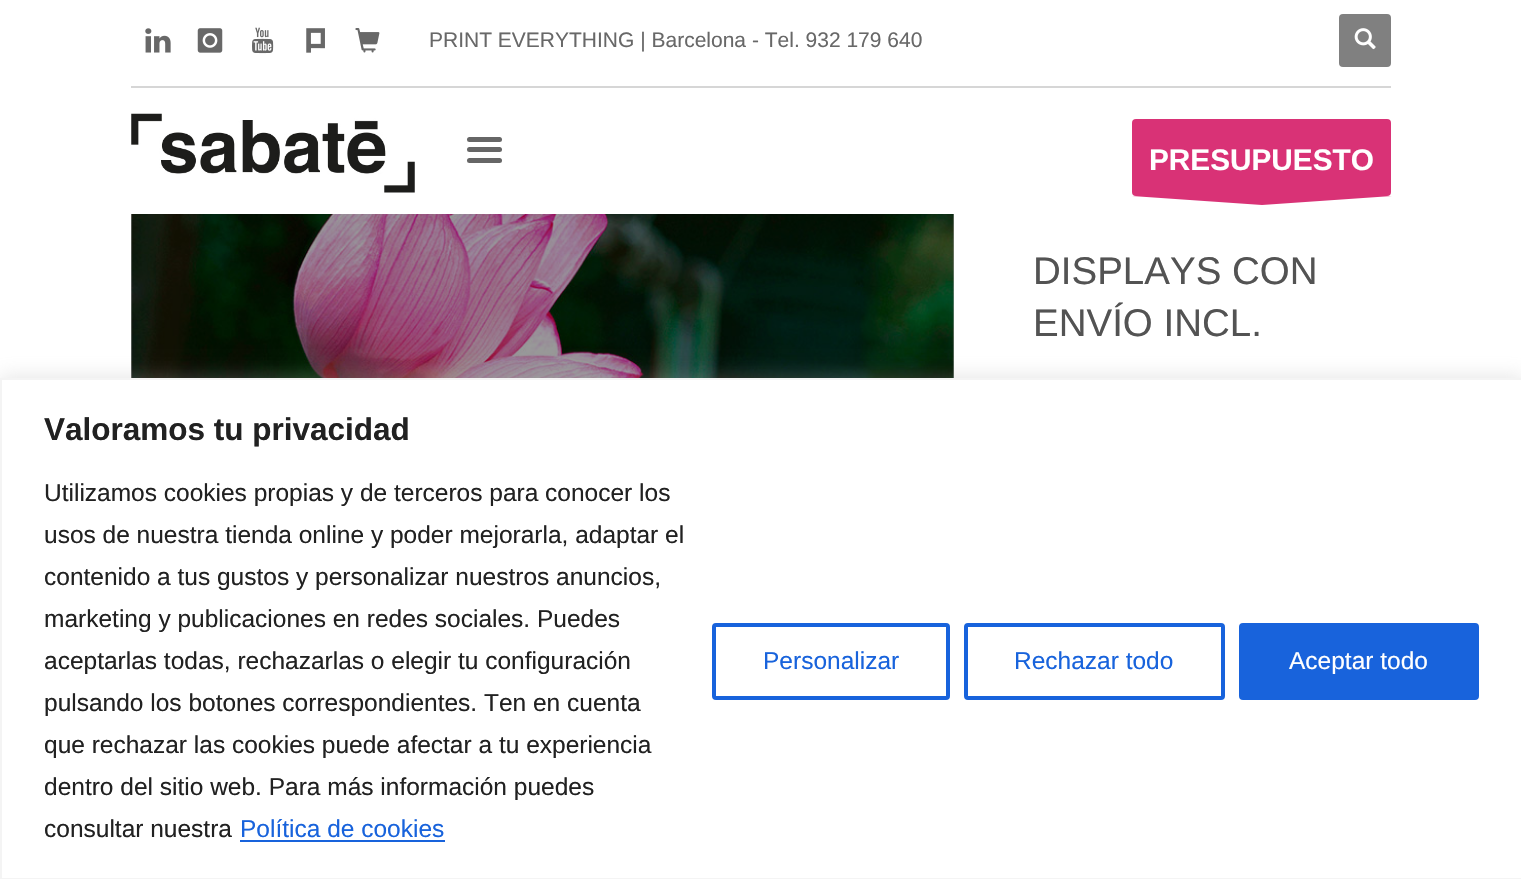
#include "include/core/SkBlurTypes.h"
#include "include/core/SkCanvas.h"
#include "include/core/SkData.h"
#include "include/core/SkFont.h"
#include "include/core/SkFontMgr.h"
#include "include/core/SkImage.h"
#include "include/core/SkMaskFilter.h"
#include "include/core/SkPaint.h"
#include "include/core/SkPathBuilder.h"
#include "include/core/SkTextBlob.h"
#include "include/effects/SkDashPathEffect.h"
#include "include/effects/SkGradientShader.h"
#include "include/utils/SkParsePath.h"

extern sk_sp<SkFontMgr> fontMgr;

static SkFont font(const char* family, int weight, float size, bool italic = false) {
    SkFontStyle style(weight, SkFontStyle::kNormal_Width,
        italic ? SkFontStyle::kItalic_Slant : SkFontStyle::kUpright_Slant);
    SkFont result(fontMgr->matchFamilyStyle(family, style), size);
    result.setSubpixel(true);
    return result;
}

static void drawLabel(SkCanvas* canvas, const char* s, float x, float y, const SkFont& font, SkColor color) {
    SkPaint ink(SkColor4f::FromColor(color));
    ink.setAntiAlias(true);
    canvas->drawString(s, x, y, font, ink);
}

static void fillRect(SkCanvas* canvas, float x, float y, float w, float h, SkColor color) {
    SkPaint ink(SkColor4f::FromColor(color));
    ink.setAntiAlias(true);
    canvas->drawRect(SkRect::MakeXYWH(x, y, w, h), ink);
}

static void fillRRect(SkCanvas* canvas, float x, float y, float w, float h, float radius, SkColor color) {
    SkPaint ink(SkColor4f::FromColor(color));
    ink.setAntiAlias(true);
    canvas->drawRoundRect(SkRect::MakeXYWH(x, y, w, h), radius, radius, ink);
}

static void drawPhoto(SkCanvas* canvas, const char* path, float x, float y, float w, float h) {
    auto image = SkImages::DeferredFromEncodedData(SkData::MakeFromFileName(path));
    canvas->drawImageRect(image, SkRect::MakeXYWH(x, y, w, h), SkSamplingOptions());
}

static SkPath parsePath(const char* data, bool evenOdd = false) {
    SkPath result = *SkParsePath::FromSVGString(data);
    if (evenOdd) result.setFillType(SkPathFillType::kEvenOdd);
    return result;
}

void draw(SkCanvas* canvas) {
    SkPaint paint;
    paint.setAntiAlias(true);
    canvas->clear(0xFFFFFFFF);
    fillRect(canvas, 131, 214, 823, 164, 0xFF999999);
    drawPhoto(canvas, "assets/img1.png", 145, 28, 26, 25);
    drawPhoto(canvas, "assets/img2.png", 197, 28, 26, 25);
    drawPhoto(canvas, "assets/img3.png", 252, 27, 22, 27);
    drawPhoto(canvas, "assets/img4.png", 306, 28, 19, 25);
    drawPhoto(canvas, "assets/img5.png", 355, 28, 25, 25);
    SkFont font1 = font("Liberation Sans", 400, 21);
    drawLabel(canvas, "PRINT EVERYTHING | Barcelona - Tel. 932 179 640", 429, 47, font1, 0xFF686868);
    fillRRect(canvas, 1339, 14, 52, 53, 4, 0xFF808080);
    drawPhoto(canvas, "assets/img6.png", 1354, 28, 22, 22);
    fillRect(canvas, 131, 86, 1260, 2, 0xFFD6D6D6);
    drawPhoto(canvas, "assets/img7.png", 131, 113, 284, 80);
    fillRRect(canvas, 467, 137, 35, 5, 2.5f, 0xFF666666);
    fillRRect(canvas, 467, 147, 35, 5, 2.5f, 0xFF666666);
    fillRRect(canvas, 467, 158, 35, 5, 2.5f, 0xFF666666);
    fillRRect(canvas, 1132, 119, 259, 77, 4, 0xFFD93276);
    SkFont font2 = font("Liberation Sans", 700, 29.75f);
    drawLabel(canvas, "PRESUPUESTO", 1149, 170, font2, 0xFFFFFFFF);
    paint.setColor(0xFFD93276);
    canvas->drawPath(parsePath("M1392 196L1262 205L1132 196Z", true), paint);
    drawPhoto(canvas, "assets/img8.png", 131, 214, 823, 164);
    SkFont font3 = font("Liberation Sans", 400, 38.5f);
    drawLabel(canvas, "DISPLAYS CON", 1033, 284, font3, 0xFF535353);
    drawLabel(canvas, "ENVÍO INCL.", 1033, 336, font3, 0xFF535353);
    paint.setColor(0x4DACABAB);
    paint.setMaskFilter(SkMaskFilter::MakeBlur(kNormal_SkBlurStyle, 9));
    canvas->drawRect(SkRect::MakeXYWH(0, 376, 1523, 503), paint);
    paint.setMaskFilter(nullptr);
    paint.setColor(0xFFFFFFFF);
    canvas->drawRect(SkRect::MakeXYWH(1, 379, 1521, 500), paint);
    paint.setStroke(true);
    paint.setStrokeWidth(2);
    paint.setColor(0xFFF4F4F4);
    canvas->drawRect(SkRect::MakeXYWH(1, 379, 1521, 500), paint);
    SkFont font4 = font("Liberation Sans", 700, 31.5f);
    drawLabel(canvas, "Valoramos tu privacidad", 44, 440, font4, 0xFF212121);
    SkFont font5 = font("Liberation Sans", 400, 24.5f);
    drawLabel(canvas, "Utilizamos cookies propias y de terceros para conocer los", 44, 501, font5, 0xFF212121);
    drawLabel(canvas, "usos de nuestra tienda online y poder mejorarla, adaptar el", 44, 543, font5, 0xFF212121);
    drawLabel(canvas, "contenido a tus gustos y personalizar nuestros anuncios,", 44, 585, font5, 0xFF212121);
    drawLabel(canvas, "marketing y publicaciones en redes sociales. Puedes", 44, 627, font5, 0xFF212121);
    drawLabel(canvas, "aceptarlas todas, rechazarlas o elegir tu configuración", 44, 669, font5, 0xFF212121);
    drawLabel(canvas, "pulsando los botones correspondientes. Ten en cuenta", 44, 711, font5, 0xFF212121);
    drawLabel(canvas, "que rechazar las cookies puede afectar a tu experiencia", 44, 753, font5, 0xFF212121);
    drawLabel(canvas, "dentro del sitio web. Para más información puedes", 44, 795, font5, 0xFF212121);
    drawLabel(canvas, "consultar nuestra", 44, 837, font5, 0xFF212121);
    drawLabel(canvas, "Política de cookies", 240, 837, font5, 0xFF1863DC);
    fillRect(canvas, 240, 840, 205, 2, 0xFF1863DC);
    paint.setStrokeWidth(4);
    paint.setColor(0xFF1863DC);
    canvas->drawRoundRect(SkRect::MakeXYWH(714, 625, 234, 73), 2, 2, paint);
    drawLabel(canvas, "Personalizar", 763, 669, font5, 0xFF1863DC);
    canvas->drawRoundRect(SkRect::MakeXYWH(966, 625, 257, 73), 2, 2, paint);
    drawLabel(canvas, "Rechazar todo", 1014, 669, font5, 0xFF1863DC);
    paint.setStroke(false);
    canvas->drawRoundRect(SkRect::MakeXYWH(1241, 625, 236, 73), 2, 2, paint);
    paint.setStroke(true);
    canvas->drawRoundRect(SkRect::MakeXYWH(1241, 625, 236, 73), 2, 2, paint);
    drawLabel(canvas, "Aceptar todo", 1289, 669, font5, 0xFFFFFFFF);
}
